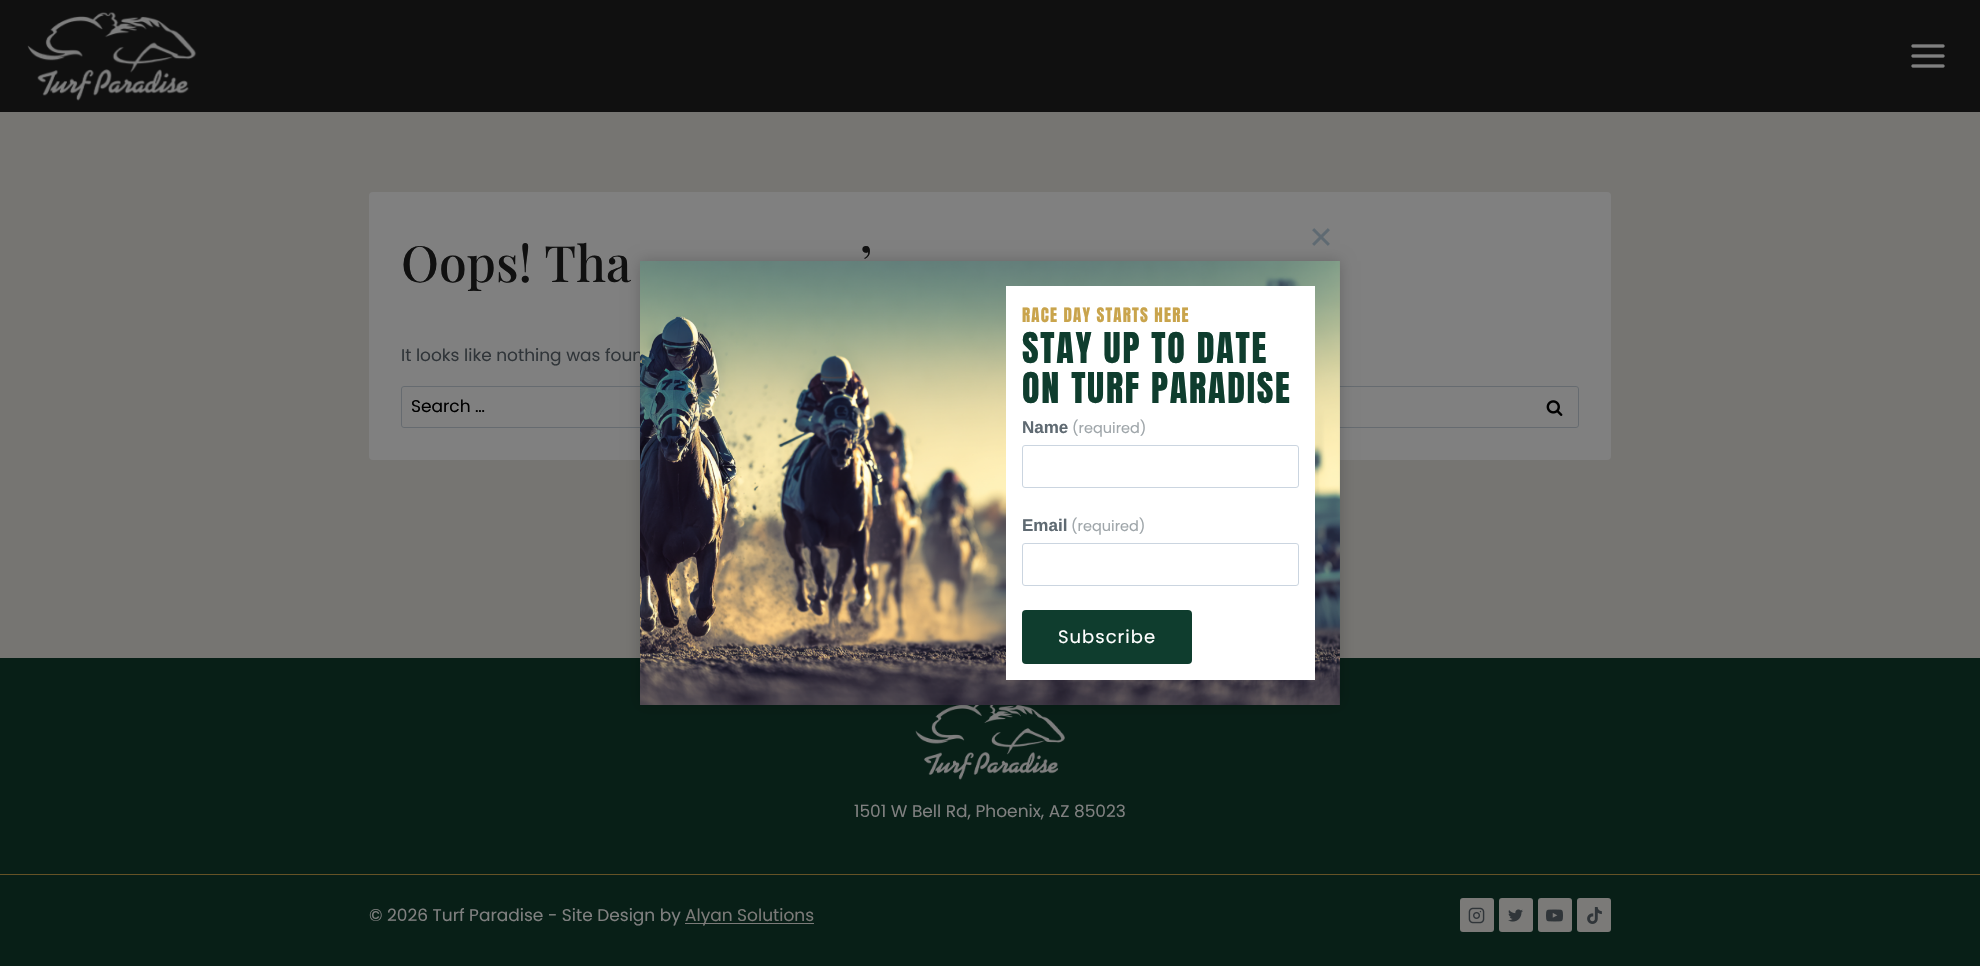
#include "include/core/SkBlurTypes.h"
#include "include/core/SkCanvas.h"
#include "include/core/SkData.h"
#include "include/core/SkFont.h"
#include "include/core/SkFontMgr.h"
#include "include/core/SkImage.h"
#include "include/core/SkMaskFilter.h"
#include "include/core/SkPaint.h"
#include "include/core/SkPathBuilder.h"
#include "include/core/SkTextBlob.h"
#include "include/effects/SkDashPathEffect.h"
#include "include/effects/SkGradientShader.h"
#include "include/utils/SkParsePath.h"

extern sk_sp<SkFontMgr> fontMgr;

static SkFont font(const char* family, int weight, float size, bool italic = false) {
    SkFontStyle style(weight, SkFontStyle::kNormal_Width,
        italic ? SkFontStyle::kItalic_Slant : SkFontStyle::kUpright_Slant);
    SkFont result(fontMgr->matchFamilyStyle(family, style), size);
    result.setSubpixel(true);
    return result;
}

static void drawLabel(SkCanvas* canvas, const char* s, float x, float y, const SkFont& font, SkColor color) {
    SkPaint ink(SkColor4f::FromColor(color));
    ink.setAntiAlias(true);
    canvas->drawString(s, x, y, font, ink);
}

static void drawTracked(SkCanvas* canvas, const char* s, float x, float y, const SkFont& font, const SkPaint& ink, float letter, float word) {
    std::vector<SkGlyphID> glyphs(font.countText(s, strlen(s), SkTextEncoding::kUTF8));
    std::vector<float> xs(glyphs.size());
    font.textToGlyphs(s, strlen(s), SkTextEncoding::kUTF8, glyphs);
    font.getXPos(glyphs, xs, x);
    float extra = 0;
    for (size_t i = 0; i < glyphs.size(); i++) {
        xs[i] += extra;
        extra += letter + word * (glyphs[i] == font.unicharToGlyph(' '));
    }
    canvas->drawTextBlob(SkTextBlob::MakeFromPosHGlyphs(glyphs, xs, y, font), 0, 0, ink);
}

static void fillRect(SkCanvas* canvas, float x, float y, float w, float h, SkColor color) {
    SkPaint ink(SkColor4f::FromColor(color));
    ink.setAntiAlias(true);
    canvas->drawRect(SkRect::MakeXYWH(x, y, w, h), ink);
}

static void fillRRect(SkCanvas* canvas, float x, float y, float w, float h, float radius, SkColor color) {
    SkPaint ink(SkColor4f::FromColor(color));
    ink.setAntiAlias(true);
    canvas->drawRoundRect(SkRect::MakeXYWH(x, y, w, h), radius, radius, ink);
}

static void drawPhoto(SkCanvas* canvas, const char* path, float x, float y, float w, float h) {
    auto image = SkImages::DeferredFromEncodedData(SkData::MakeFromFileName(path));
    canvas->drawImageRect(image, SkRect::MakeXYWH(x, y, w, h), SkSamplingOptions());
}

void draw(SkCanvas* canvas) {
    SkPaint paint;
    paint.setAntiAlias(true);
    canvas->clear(0xFF767572);
    fillRect(canvas, 0, 0, 1980, 112, 0xFF101010);
    drawPhoto(canvas, "assets/img1.png", 27, 12, 170, 89);
    drawPhoto(canvas, "assets/img2.png", 1911, 44, 34, 24);
    fillRRect(canvas, 369, 192, 1242, 268, 4, 0xFF808080);
    SkFont font1 = font("Playfair Display", 500, 50);
    drawLabel(canvas, "Oops! Tha", 401, 282, font1, 0xFF101010);
    drawLabel(canvas, "’", 860, 282, font1, 0xFF101010);
    SkFont font2 = font("Poppins", 400, 17);
    drawLabel(canvas, "It looks like nothing was foun", 401, 361, font2, 0xFF303539);
    paint.setStroke(true);
    paint.setStrokeWidth(1);
    paint.setColor(0xFF666B70);
    canvas->drawRoundRect(SkRect::MakeXYWH(401.5f, 386.5f, 1177, 41), 2.5f, 2.5f, paint);
    drawLabel(canvas, "Search …", 411, 412, font2, 0xFF000000);
    drawPhoto(canvas, "assets/img3.png", 1546, 400, 17, 16);
    fillRect(canvas, 0, 658, 1980, 216, 0xFF081F17);
    drawPhoto(canvas, "assets/img4.png", 915, 705, 150, 75);
    drawLabel(canvas, "1501 W Bell Rd, Phoenix, AZ 85023", 854, 817, font2, 0xFF808080);
    fillRect(canvas, 0, 875, 1980, 91, 0xFF081F17);
    fillRect(canvas, 0, 874, 1980, 1, 0xFF655226);
    drawLabel(canvas, "© 2026 Turf Paradise - Site Design by", 369, 921, font2, 0xFF808080);
    fillRect(canvas, 685, 923, 129, 1, 0xFF7B7A78);
    drawLabel(canvas, "Alyan Solutions", 685, 921, font2, 0xFF7B7A78);
    fillRRect(canvas, 1460, 898, 34, 34, 3, 0xFF7B7A78);
    drawPhoto(canvas, "assets/img5.png", 1468, 907, 17, 17);
    fillRRect(canvas, 1499, 898, 34, 34, 3, 0xFF7B7A78);
    drawPhoto(canvas, "assets/img6.png", 1508, 909, 15, 13);
    fillRRect(canvas, 1538, 898, 34, 34, 3, 0xFF7B7A78);
    drawPhoto(canvas, "assets/img7.png", 1546, 909, 17, 13);
    fillRRect(canvas, 1577, 898, 34, 34, 3, 0xFF7B7A78);
    drawPhoto(canvas, "assets/img8.png", 1587, 907, 15, 17);
    paint.setStroke(false);
    paint.setColor(0x33000000);
    paint.setMaskFilter(SkMaskFilter::MakeBlur(kNormal_SkBlurStyle, 7));
    canvas->drawRect(SkRect::MakeXYWH(640, 261, 700, 444), paint);
    paint.setMaskFilter(nullptr);
    drawPhoto(canvas, "assets/img9.png", 1312, 228, 18, 18);
    drawPhoto(canvas, "assets/img10.png", 640, 261, 700, 444);
    fillRect(canvas, 1006, 286, 309, 394, 0xFFFFFFFF);
    SkFont font3 = font("Anton", 400, 17);
    paint.setColor(0xFFC9A44C);
    drawTracked(canvas, "RACE DAY STARTS HERE", 1022, 322, font3, paint, 1.2f, 0);
    SkFont font4 = font("Anton", 400, 36);
    paint.setColor(0xFF0F3D2E);
    drawTracked(canvas, "STAY UP TO DATE", 1022, 363, font4, paint, 1.75f, 0);
    drawTracked(canvas, "ON TURF PARADISE", 1022, 403, font4, paint, 1.75f, 0);
    SkFont font5 = font("Liberation Sans", 700, 17);
    drawLabel(canvas, "Name", 1022, 433, font5, 0xFF5F6A72);
    SkFont font6 = font("Poppins", 400, 14.5f);
    drawLabel(canvas, "(required)", 1072, 433, font6, 0xFF9FA6AA);
    paint.setStroke(true);
    paint.setColor(0xFFCBD5E0);
    canvas->drawRoundRect(SkRect::MakeXYWH(1022.5f, 445.5f, 276, 42), 2.5f, 2.5f, paint);
    drawLabel(canvas, "Email", 1022, 531, font5, 0xFF5F6A72);
    drawLabel(canvas, "(required)", 1071, 531, font6, 0xFF9FA6AA);
    canvas->drawRoundRect(SkRect::MakeXYWH(1022.5f, 543.5f, 276, 42), 2.5f, 2.5f, paint);
    fillRRect(canvas, 1022, 610, 170, 54, 4, 0xFF0F3D2E);
    SkFont font7 = font("Poppins", 400, 18);
    paint.setStroke(false);
    paint.setColor(0xFFFFFFFF);
    drawTracked(canvas, "Subscribe", 1058, 643, font7, paint, 1, 0);
}
